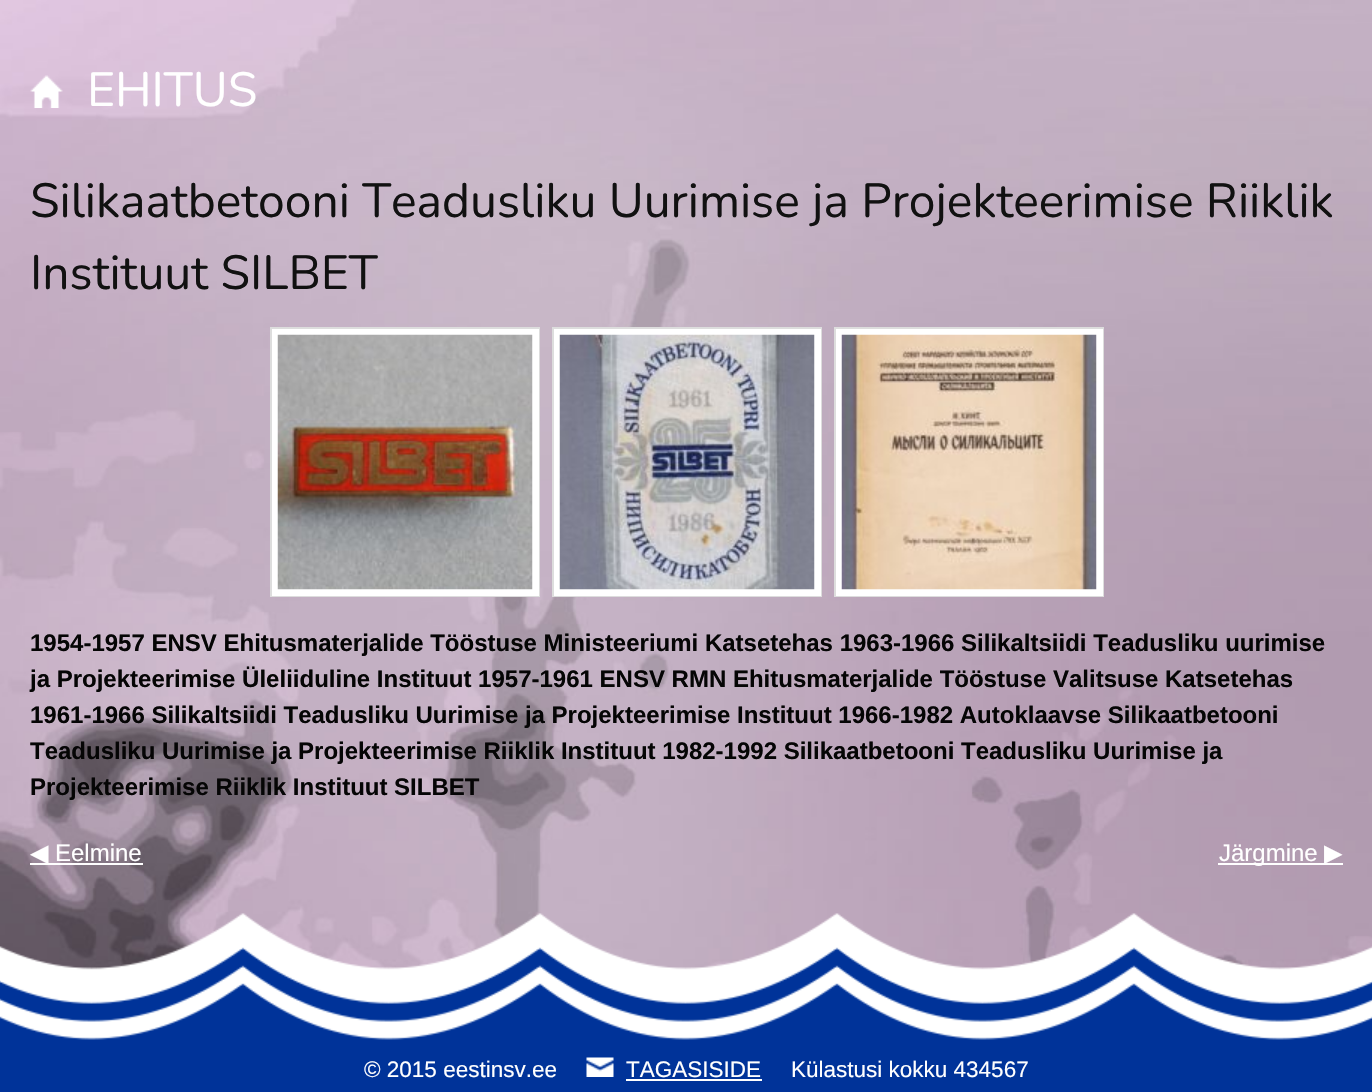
#include "include/core/SkBlurTypes.h"
#include "include/core/SkCanvas.h"
#include "include/core/SkData.h"
#include "include/core/SkFont.h"
#include "include/core/SkFontMgr.h"
#include "include/core/SkImage.h"
#include "include/core/SkMaskFilter.h"
#include "include/core/SkPaint.h"
#include "include/core/SkPathBuilder.h"
#include "include/core/SkTextBlob.h"
#include "include/effects/SkDashPathEffect.h"
#include "include/effects/SkGradientShader.h"
#include "include/utils/SkParsePath.h"

extern sk_sp<SkFontMgr> fontMgr;

static SkFont font(const char* family, int weight, float size, bool italic = false) {
    SkFontStyle style(weight, SkFontStyle::kNormal_Width,
        italic ? SkFontStyle::kItalic_Slant : SkFontStyle::kUpright_Slant);
    SkFont result(fontMgr->matchFamilyStyle(family, style), size);
    result.setSubpixel(true);
    return result;
}

static void drawLabel(SkCanvas* canvas, const char* s, float x, float y, const SkFont& font, SkColor color) {
    SkPaint ink(SkColor4f::FromColor(color));
    ink.setAntiAlias(true);
    canvas->drawString(s, x, y, font, ink);
}

static void fillRect(SkCanvas* canvas, float x, float y, float w, float h, SkColor color) {
    SkPaint ink(SkColor4f::FromColor(color));
    ink.setAntiAlias(true);
    canvas->drawRect(SkRect::MakeXYWH(x, y, w, h), ink);
}

static void drawPhoto(SkCanvas* canvas, const char* path, float x, float y, float w, float h) {
    auto image = SkImages::DeferredFromEncodedData(SkData::MakeFromFileName(path));
    canvas->drawImageRect(image, SkRect::MakeXYWH(x, y, w, h), SkSamplingOptions());
}

void draw(SkCanvas* canvas) {
    SkPaint paint;
    paint.setAntiAlias(true);
    canvas->clear(0xFFFFFFFF);
    drawPhoto(canvas, "assets/img1.png", 0, 0, 1372, 970);
    drawPhoto(canvas, "assets/img2.png", 30, 75, 33, 33);
    SkFont font1 = font("Nunito", 200, 48);
    drawLabel(canvas, "EHITUS", 87, 106, font1, 0xFFFFFFFF);
    drawLabel(canvas, "Silikaatbetooni Teadusliku Uurimise ja Projekteerimise Riiklik", 30, 217, font1, 0xFF111111);
    drawLabel(canvas, "Instituut SILBET", 30, 289, font1, 0xFF111111);
    paint.setStroke(true);
    paint.setStrokeWidth(2);
    paint.setColor(0xFFDDDDDD);
    canvas->drawRect(SkRect::MakeXYWH(271, 328, 268, 268), paint);
    fillRect(canvas, 272, 329, 267, 267, 0xFFFFFFFF);
    drawPhoto(canvas, "assets/img3.png", 277, 334, 256, 256);
    canvas->drawRect(SkRect::MakeXYWH(553, 328, 268, 268), paint);
    fillRect(canvas, 554, 329, 267, 267, 0xFFFFFFFF);
    drawPhoto(canvas, "assets/img4.png", 559, 334, 256, 256);
    canvas->drawRect(SkRect::MakeXYWH(835, 328, 268, 268), paint);
    fillRect(canvas, 836, 329, 267, 267, 0xFFFFFFFF);
    drawPhoto(canvas, "assets/img5.png", 841, 334, 256, 256);
    SkFont font2 = font("Liberation Sans", 700, 24);
    drawLabel(canvas, "1954-1957 ENSV Ehitusmaterjalide Tööstuse Ministeeriumi Katsetehas 1963-1966 Silikaltsiidi Teadusliku uurimise", 30, 651, font2, 0xFF050505);
    drawLabel(canvas, "ja Projekteerimise Üleliiduline Instituut 1957-1961 ENSV RMN Ehitusmaterjalide Tööstuse Valitsuse Katsetehas", 30, 687, font2, 0xFF050505);
    drawLabel(canvas, "1961-1966 Silikaltsiidi Teadusliku Uurimise ja Projekteerimise Instituut 1966-1982 Autoklaavse Silikaatbetooni", 30, 723, font2, 0xFF050505);
    drawLabel(canvas, "Teadusliku Uurimise ja Projekteerimise Riiklik Instituut 1982-1992 Silikaatbetooni Teadusliku Uurimise ja", 30, 759, font2, 0xFF050505);
    drawLabel(canvas, "Projekteerimise Riiklik Instituut SILBET", 30, 795, font2, 0xFF050505);
    fillRect(canvas, 30, 863, 113, 2, 0xFFFFFFFF);
    SkFont font3 = font("DejaVu Sans", 400, 24);
    drawLabel(canvas, "◀", 30, 861, font3, 0xFFFFFFFF);
    SkFont font4 = font("Liberation Sans", 400, 24);
    drawLabel(canvas, "Eelmine", 55, 861, font4, 0xFFFFFFFF);
    fillRect(canvas, 1218, 863, 125, 2, 0xFFFFFFFF);
    drawLabel(canvas, "Järgmine", 1219, 861, font4, 0xFFFFFFFF);
    drawLabel(canvas, "▶", 1324, 861, font3, 0xFFFFFFFF);
    drawPhoto(canvas, "assets/img6.png", 0, 913, 1372, 179);
    SkFont font5 = font("Liberation Sans", 400, 22.5f);
    drawLabel(canvas, "© 2015 eestinsv.ee", 364, 1077, font5, 0xFFFFFFFF);
    drawPhoto(canvas, "assets/img7.png", 586, 1057, 28, 20);
    drawLabel(canvas, "TAGASISIDE", 626, 1077, font5, 0xFFFFFFFF);
    fillRect(canvas, 626, 1079, 136, 2, 0xFFFFFFFF);
    drawLabel(canvas, "Külastusi kokku 434567", 791, 1077, font5, 0xFFFFFFFF);
}
